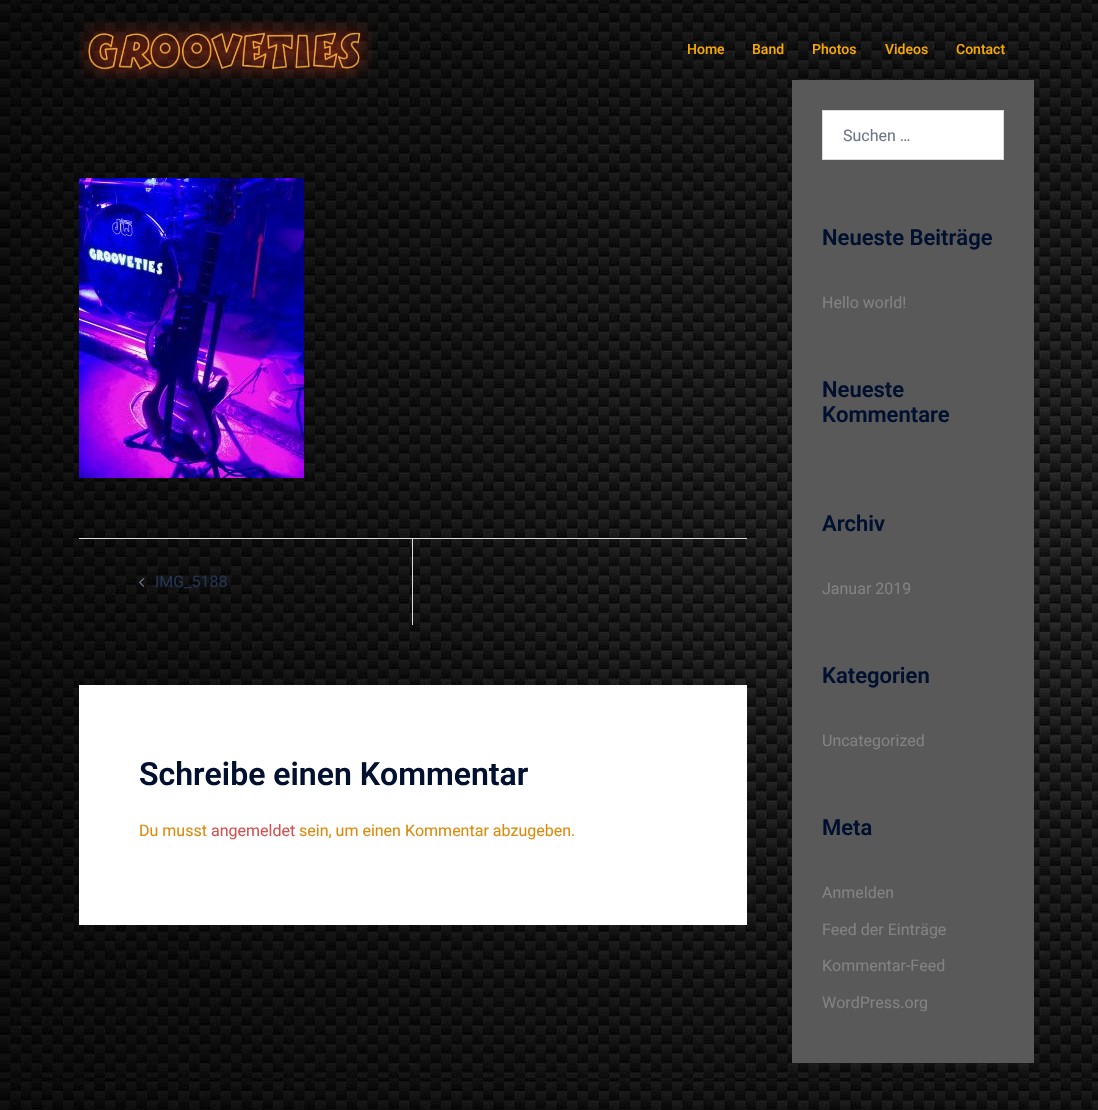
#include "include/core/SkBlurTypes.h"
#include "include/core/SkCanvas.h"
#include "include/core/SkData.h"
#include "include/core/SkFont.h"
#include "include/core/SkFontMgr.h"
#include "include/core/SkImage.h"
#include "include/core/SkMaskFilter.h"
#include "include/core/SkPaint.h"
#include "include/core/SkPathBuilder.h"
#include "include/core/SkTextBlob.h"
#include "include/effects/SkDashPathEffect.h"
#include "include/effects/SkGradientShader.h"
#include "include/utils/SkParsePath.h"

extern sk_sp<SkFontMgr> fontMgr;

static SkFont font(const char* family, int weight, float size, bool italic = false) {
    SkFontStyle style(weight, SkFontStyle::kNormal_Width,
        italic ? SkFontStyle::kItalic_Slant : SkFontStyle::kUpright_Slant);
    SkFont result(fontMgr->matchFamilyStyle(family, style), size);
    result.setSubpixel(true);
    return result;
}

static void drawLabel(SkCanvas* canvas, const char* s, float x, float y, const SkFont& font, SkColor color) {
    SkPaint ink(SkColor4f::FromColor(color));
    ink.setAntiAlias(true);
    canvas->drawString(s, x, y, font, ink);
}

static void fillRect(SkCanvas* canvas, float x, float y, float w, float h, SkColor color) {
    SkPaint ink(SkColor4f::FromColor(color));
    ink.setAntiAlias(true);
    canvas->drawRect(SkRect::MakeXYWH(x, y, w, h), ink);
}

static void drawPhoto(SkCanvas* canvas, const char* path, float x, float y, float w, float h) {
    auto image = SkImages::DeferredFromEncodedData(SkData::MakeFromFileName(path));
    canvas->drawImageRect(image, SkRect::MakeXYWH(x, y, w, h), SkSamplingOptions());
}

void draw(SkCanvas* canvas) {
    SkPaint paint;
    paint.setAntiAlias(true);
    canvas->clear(0xFFFFFFFF);
    drawPhoto(canvas, "assets/img1.png", 0, 0, 1098, 1110);
    drawPhoto(canvas, "assets/img2.png", 79, 20, 293, 59);
    SkFont font1 = font("Roboto", 500, 14);
    drawLabel(canvas, "Home", 687, 54, font1, 0xFFF7A900);
    drawLabel(canvas, "Band", 752, 54, font1, 0xFFF7A900);
    drawLabel(canvas, "Photos", 812, 54, font1, 0xFFF7A900);
    drawLabel(canvas, "Videos", 885, 54, font1, 0xFFF7A900);
    drawLabel(canvas, "Contact", 956, 54, font1, 0xFFF7A900);
    drawPhoto(canvas, "assets/img3.png", 79, 178, 225, 300);
    fillRect(canvas, 79, 538, 668, 1, 0xFFDBDBDB);
    fillRect(canvas, 412, 539, 1, 86, 0xFFDBDBDB);
    drawPhoto(canvas, "assets/img4.png", 139, 578, 6, 9);
    SkFont font2 = font("Roboto", 400, 16);
    drawLabel(canvas, "IMG_5188", 155, 587, font2, 0xFF233452);
    fillRect(canvas, 79, 685, 668, 240, 0xFFFFFFFF);
    SkFont font3 = font("Roboto", 600, 32);
    drawLabel(canvas, "Schreibe einen Kommentar", 139, 785, font3, 0xFF00102E);
    drawLabel(canvas, "Du musst", 139, 836, font2, 0xFFDD8A0D);
    drawLabel(canvas, "angemeldet", 211, 836, font2, 0xFFD65050);
    drawLabel(canvas, "sein, um einen Kommentar abzugeben.", 299, 836, font2, 0xFFDD8A0D);
    fillRect(canvas, 792, 80, 242, 983, 0xFF595959);
    paint.setColor(0xFFFFFFFF);
    canvas->drawRect(SkRect::MakeXYWH(822.5f, 110.5f, 181, 49), paint);
    paint.setStroke(true);
    paint.setStrokeWidth(1);
    paint.setColor(0xFFDBDBDB);
    canvas->drawRect(SkRect::MakeXYWH(822.5f, 110.5f, 181, 49), paint);
    drawLabel(canvas, "Suchen …", 843, 141, font2, 0xFF6D7685);
    SkFont font4 = font("Roboto", 600, 22);
    drawLabel(canvas, "Neueste Beiträge", 822, 245, font4, 0xFF00102E);
    drawLabel(canvas, "Hello world!", 822, 308, font2, 0xFF828282);
    drawLabel(canvas, "Neueste", 822, 397, font4, 0xFF00102E);
    drawLabel(canvas, "Kommentare", 822, 422, font4, 0xFF00102E);
    drawLabel(canvas, "Archiv", 822, 531, font4, 0xFF00102E);
    drawLabel(canvas, "Januar 2019", 822, 594, font2, 0xFF828282);
    drawLabel(canvas, "Kategorien", 822, 683, font4, 0xFF00102E);
    drawLabel(canvas, "Uncategorized", 822, 746, font2, 0xFF828282);
    drawLabel(canvas, "Meta", 822, 835, font4, 0xFF00102E);
    drawLabel(canvas, "Anmelden", 822, 898, font2, 0xFF828282);
    drawLabel(canvas, "Feed der Einträge", 822, 935, font2, 0xFF828282);
    drawLabel(canvas, "Kommentar-Feed", 822, 971, font2, 0xFF828282);
    drawLabel(canvas, "WordPress.org", 822, 1008, font2, 0xFF828282);
}
